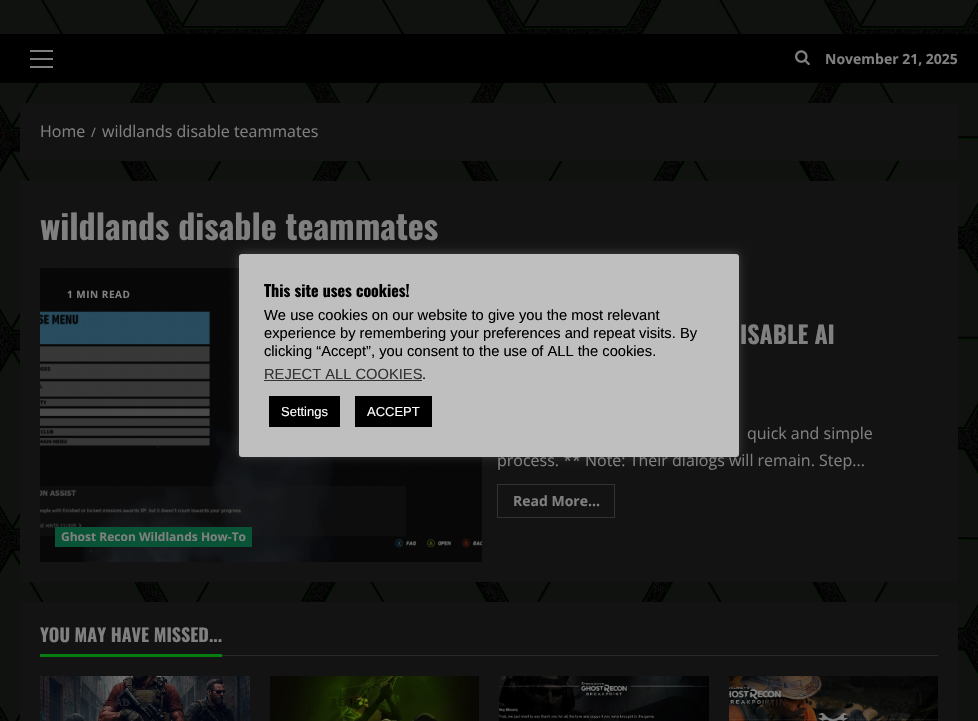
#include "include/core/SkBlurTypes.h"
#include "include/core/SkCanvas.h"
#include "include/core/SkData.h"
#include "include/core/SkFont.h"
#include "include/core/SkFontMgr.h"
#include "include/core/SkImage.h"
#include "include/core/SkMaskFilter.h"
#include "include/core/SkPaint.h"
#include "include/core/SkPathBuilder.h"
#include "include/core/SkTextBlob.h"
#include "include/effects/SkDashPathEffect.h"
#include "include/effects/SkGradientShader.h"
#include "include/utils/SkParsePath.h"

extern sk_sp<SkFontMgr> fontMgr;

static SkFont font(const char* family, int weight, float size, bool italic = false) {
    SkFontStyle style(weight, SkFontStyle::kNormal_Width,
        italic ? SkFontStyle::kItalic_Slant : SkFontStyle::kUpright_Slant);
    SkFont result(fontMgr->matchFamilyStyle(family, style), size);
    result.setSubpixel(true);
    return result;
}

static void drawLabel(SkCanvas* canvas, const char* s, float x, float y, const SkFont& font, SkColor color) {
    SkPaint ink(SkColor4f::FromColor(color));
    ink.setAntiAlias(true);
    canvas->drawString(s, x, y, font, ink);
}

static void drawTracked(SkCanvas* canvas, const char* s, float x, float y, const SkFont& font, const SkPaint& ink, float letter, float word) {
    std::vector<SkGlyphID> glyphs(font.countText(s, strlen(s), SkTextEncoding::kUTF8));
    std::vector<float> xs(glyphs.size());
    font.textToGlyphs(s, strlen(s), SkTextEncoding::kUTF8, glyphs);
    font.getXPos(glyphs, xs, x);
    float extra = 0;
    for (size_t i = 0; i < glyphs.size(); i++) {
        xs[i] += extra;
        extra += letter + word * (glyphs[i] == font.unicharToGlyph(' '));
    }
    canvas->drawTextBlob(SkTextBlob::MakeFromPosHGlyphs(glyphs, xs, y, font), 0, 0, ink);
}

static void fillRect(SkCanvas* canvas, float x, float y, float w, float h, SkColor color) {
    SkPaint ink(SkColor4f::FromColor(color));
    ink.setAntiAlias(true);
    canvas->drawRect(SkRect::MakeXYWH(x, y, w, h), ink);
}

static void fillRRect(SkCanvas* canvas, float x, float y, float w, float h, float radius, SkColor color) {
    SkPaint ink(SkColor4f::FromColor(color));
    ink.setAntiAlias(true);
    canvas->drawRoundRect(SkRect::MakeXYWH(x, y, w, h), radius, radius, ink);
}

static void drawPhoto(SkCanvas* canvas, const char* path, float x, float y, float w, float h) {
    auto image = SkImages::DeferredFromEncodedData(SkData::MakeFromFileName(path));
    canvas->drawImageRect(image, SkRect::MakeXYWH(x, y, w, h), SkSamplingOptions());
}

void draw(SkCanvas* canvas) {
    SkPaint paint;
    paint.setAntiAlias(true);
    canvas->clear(0xFFFFFFFF);
    drawPhoto(canvas, "assets/img1.png", 0, 0, 978, 721);
    fillRect(canvas, 0, 34, 978, 49, 0xFF000000);
    fillRect(canvas, 30, 58, 23, 2, 0xFF808080);
    fillRect(canvas, 30, 50, 23, 2, 0xFF808080);
    fillRect(canvas, 30, 66, 23, 2, 0xFF808080);
    drawPhoto(canvas, "assets/img2.png", 795, 50, 15, 16);
    SkFont font1 = font("Open Sans", 700, 14);
    drawLabel(canvas, "November 21, 2025", 825, 64, font1, 0xFF808080);
    fillRect(canvas, 20, 103, 938, 58, 0xFF131313);
    SkFont font2 = font("Open Sans", 400, 16);
    drawLabel(canvas, "Home", 40, 137, font2, 0xFF808080);
    SkFont font3 = font("Open Sans", 400, 13);
    drawLabel(canvas, "/", 91, 137, font3, 0xFF808080);
    drawLabel(canvas, "wildlands disable teammates", 102, 137, font2, 0xFF808080);
    fillRect(canvas, 20, 181, 938, 401, 0xFF131313);
    SkFont font4 = font("Oswald", 700, 34);
    drawLabel(canvas, "wildlands disable teammates", 40, 240, font4, 0xFF808080);
    drawPhoto(canvas, "assets/img3.png", 40, 268, 442, 294);
    SkFont font5 = font("Open Sans", 700, 10);
    paint.setColor(0xFF808080);
    drawTracked(canvas, "1 MIN READ", 67, 298, font5, paint, 0.5f, 0);
    fillRect(canvas, 55, 527, 197, 20, 0xFF095436);
    SkFont font6 = font("Open Sans", 700, 12);
    drawLabel(canvas, "Ghost Recon Wildlands How-To", 61, 541, font6, 0xFF808080);
    SkFont font7 = font("Oswald", 700, 24);
    drawLabel(canvas, "ISABLE AI", 740, 344, font7, 0xFF808080);
    drawLabel(canvas, "quick and simple", 747, 439, font2, 0xFF808080);
    drawLabel(canvas, "process. ** Note: Their dialogs will remain. Step...", 497, 466, font2, 0xFF808080);
    paint.setStroke(true);
    paint.setStrokeWidth(1);
    paint.setColor(0xFF333333);
    canvas->drawRect(SkRect::MakeXYWH(497.5f, 484.5f, 117, 33), paint);
    drawLabel(canvas, "Read More...", 513, 506, font1, 0xFF808080);
    fillRect(canvas, 20, 602, 938, 119, 0xFF131313);
    fillRect(canvas, 222, 655, 716, 1, 0xFF292929);
    SkFont font8 = font("Oswald", 700, 18);
    drawLabel(canvas, "YOU MAY HAVE MISSED...", 40, 642, font8, 0xFF808080);
    fillRect(canvas, 40, 654, 182, 3, 0xFF077C11);
    drawPhoto(canvas, "assets/img4.png", 40, 676, 210, 45);
    paint.setStroke(false);
    paint.setColor(0xFF1F1E24);
    drawTracked(canvas, "AD", 115, 706, font5, paint, 0.5f, 0);
    drawPhoto(canvas, "assets/img5.png", 270, 676, 209, 45);
    paint.setColor(0xFF131C03);
    drawTracked(canvas, "READ", 331, 706, font5, paint, 0.5f, 0);
    drawPhoto(canvas, "assets/img6.png", 499, 676, 210, 45);
    drawPhoto(canvas, "assets/img7.png", 729, 676, 209, 45);
    paint.setColor(0xFF251A13);
    drawTracked(canvas, "MIN", 765, 706, font5, paint, 0.5f, 0);
    paint.setColor(0x4DACABAB);
    paint.setMaskFilter(SkMaskFilter::MakeBlur(kNormal_SkBlurStyle, 5));
    canvas->drawRoundRect(SkRect::MakeXYWH(239, 253, 500, 203), 3, 3, paint);
    paint.setMaskFilter(nullptr);
    fillRRect(canvas, 239, 254, 500, 203, 3, 0xFFBFBFBF);
    SkFont font9 = font("Oswald", 700, 16);
    drawLabel(canvas, "This site uses cookies!", 264, 297, font9, 0xFF000000);
    SkFont font10 = font("Liberation Sans", 400, 14.7f);
    drawLabel(canvas, "We use cookies on our website to give you the most relevant", 264, 320, font10, 0xFF000000);
    drawLabel(canvas, "experience by remembering your preferences and repeat visits. By", 264, 338, font10, 0xFF000000);
    drawLabel(canvas, "clicking “Accept”, you consent to the use of ALL the cookies.", 264, 356, font10, 0xFF000000);
    drawLabel(canvas, "REJECT ALL COOKIES", 264, 379, font10, 0xFF333333);
    fillRect(canvas, 264, 380, 158, 1, 0xFF333333);
    drawLabel(canvas, ".", 422, 379, font10, 0xFF000000);
    fillRect(canvas, 269, 396, 71, 31, 0xFF000000);
    SkFont font11 = font("Liberation Sans", 400, 13);
    drawLabel(canvas, "Settings", 281, 416, font11, 0xFFFFFFFF);
    fillRect(canvas, 355, 396, 77, 31, 0xFF000000);
    drawLabel(canvas, "ACCEPT", 367, 416, font11, 0xFFFFFFFF);
}
